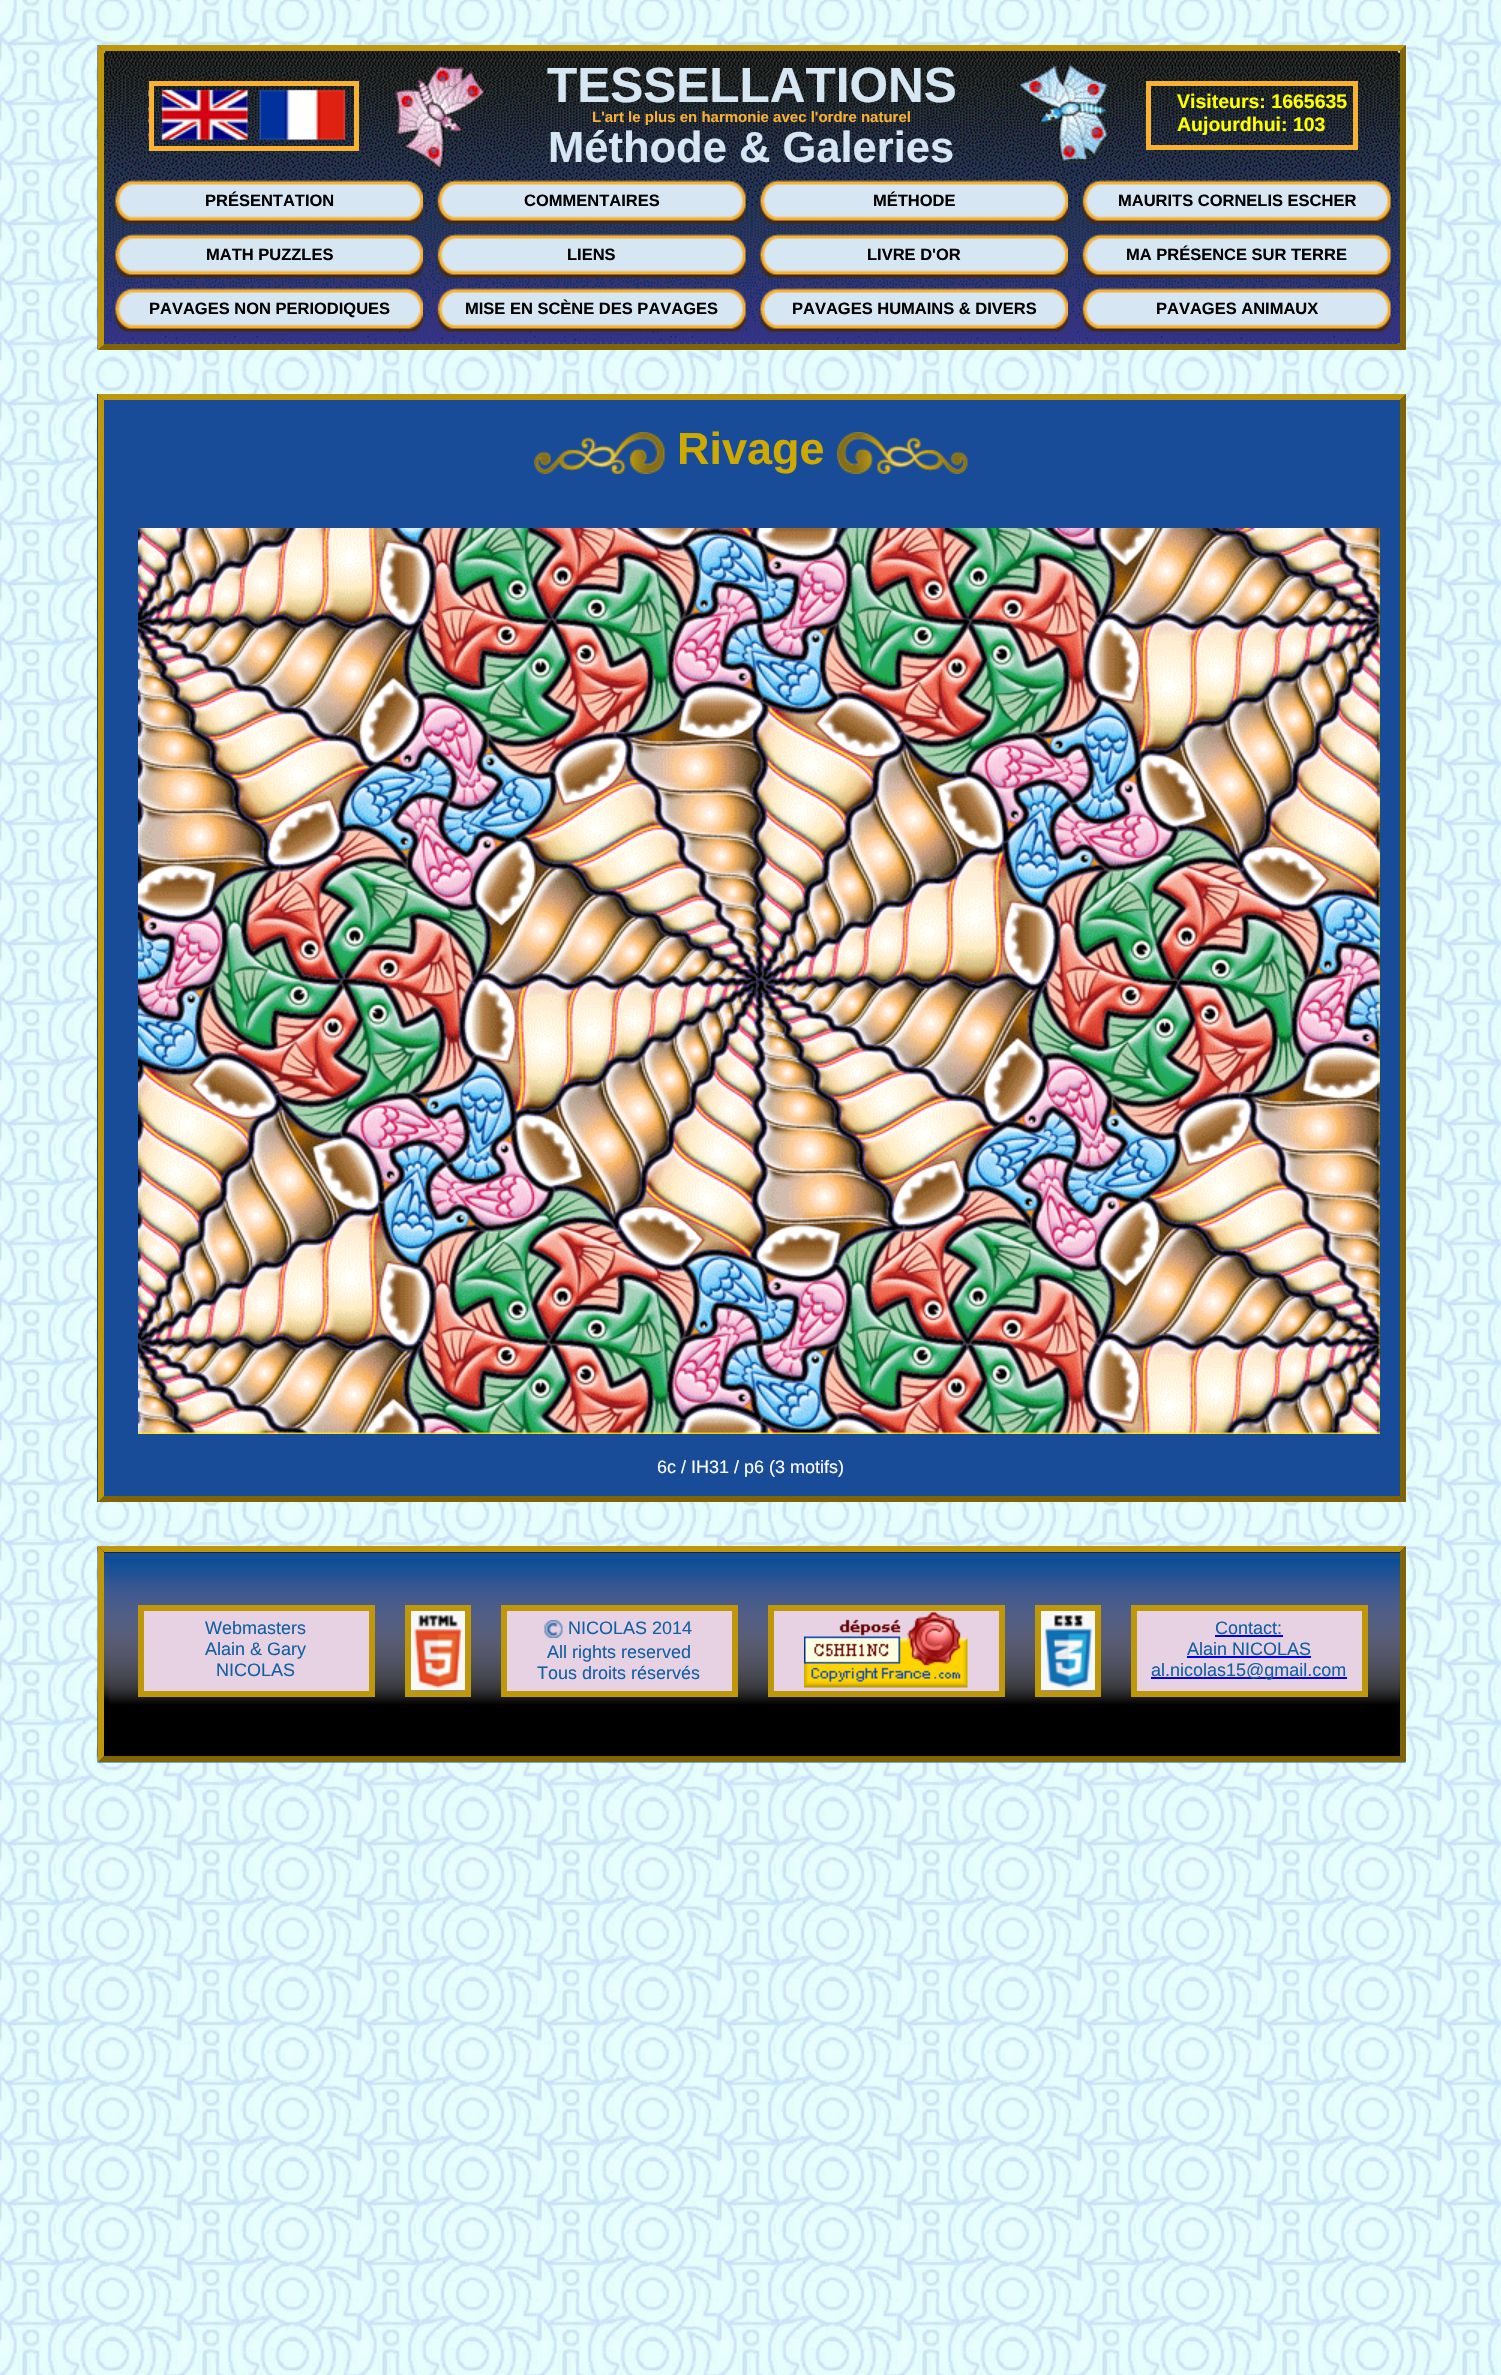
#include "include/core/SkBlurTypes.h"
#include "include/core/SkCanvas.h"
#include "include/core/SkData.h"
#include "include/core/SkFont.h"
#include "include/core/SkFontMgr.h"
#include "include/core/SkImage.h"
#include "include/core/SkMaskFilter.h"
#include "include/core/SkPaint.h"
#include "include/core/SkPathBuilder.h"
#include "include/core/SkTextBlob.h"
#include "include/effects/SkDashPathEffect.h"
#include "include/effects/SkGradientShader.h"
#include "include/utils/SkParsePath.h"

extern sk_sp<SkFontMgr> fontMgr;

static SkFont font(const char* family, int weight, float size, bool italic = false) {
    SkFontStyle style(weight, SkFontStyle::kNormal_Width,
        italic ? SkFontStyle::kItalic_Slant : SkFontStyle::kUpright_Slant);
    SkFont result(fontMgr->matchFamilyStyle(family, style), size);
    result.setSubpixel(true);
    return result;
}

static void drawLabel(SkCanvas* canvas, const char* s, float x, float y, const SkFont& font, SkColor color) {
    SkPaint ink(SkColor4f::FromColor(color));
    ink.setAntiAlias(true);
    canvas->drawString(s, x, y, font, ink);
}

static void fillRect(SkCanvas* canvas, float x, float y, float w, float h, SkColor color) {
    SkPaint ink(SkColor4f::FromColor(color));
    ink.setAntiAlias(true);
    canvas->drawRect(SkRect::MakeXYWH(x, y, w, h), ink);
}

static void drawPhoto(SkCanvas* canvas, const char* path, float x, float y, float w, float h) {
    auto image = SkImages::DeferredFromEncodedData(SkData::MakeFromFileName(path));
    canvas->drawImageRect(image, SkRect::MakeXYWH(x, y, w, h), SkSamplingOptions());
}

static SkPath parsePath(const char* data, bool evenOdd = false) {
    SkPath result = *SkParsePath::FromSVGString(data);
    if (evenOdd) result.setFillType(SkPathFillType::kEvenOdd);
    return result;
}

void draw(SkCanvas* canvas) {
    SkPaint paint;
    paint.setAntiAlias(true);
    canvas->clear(0xFFFFFFFF);
    drawPhoto(canvas, "assets/img1.png", 0, 0, 1501, 2375);
    drawPhoto(canvas, "assets/img2.png", 97, 45, 1309, 305);
    paint.setColor(0xFFBE970A);
    canvas->drawPath(parsePath("M98 45H1406L1400 51H104Z"), paint);
    paint.setColor(0xFF7F6507);
    canvas->drawPath(parsePath("M1406 45V350L1400 344V51Z"), paint);
    canvas->drawPath(parsePath("M1406 350H98L104 344H1400Z"), paint);
    paint.setColor(0xFFBE970A);
    canvas->drawPath(parsePath("M98 350V45L104 51V344Z"), paint);
    drawPhoto(canvas, "assets/img3.png", 148, 89, 100, 61);
    fillRect(canvas, 149, 81, 210, 5, 0xFFF7B234);
    fillRect(canvas, 149, 146, 105, 5, 0xFFF7B234);
    fillRect(canvas, 149, 81, 5, 69, 0xFFF7B234);
    SkFont font1 = font("Liberation Sans", 700, 49.5f);
    drawLabel(canvas, "TESSELLATIONS", 547, 102, font1, 0xFFD7E6F3);
    drawPhoto(canvas, "assets/img4.png", 259, 89, 87, 51);
    fillRect(canvas, 354, 81, 5, 69, 0xFFF7B234);
    fillRect(canvas, 254, 146, 105, 5, 0xFFF7B234);
    SkFont font2 = font("Liberation Sans", 700, 15);
    drawLabel(canvas, "L'art le plus en harmonie avec l'ordre naturel", 592, 122, font2, 0xFFF7B234);
    paint.setStroke(true);
    paint.setStrokeWidth(5);
    paint.setColor(0xFFF7B234);
    canvas->drawRect(SkRect::MakeXYWH(1148.5f, 83.5f, 207, 64), paint);
    SkFont font3 = font("Liberation Sans", 700, 19.5f);
    drawLabel(canvas, "Visiteurs: 1665635", 1177, 108, font3, 0xFFFFFF00);
    drawLabel(canvas, "Aujourdhui: 103", 1177, 131, font3, 0xFFFFFF00);
    SkFont font4 = font("Liberation Sans", 700, 43.5f);
    drawLabel(canvas, "Méthode & Galeries", 548, 162, font4, 0xFFD7E6F3);
    drawPhoto(canvas, "assets/img5.png", 114, 180, 309, 44);
    SkFont font5 = font("Liberation Sans", 700, 16.5f);
    drawLabel(canvas, "PRÉSENTATION", 205, 206, font5, 0xFF000000);
    drawPhoto(canvas, "assets/img6.png", 436, 180, 310, 44);
    drawLabel(canvas, "COMMENTAIRES", 524, 206, font5, 0xFF000000);
    drawPhoto(canvas, "assets/img7.png", 759, 180, 309, 44);
    drawLabel(canvas, "MÉTHODE", 873, 206, font5, 0xFF000000);
    drawPhoto(canvas, "assets/img8.png", 1081, 180, 310, 44);
    drawLabel(canvas, "MAURITS CORNELIS ESCHER", 1118, 206, font5, 0xFF000000);
    drawPhoto(canvas, "assets/img9.png", 114, 234, 309, 44);
    drawLabel(canvas, "MATH PUZZLES", 206, 260, font5, 0xFF000000);
    drawPhoto(canvas, "assets/img10.png", 436, 234, 310, 44);
    drawLabel(canvas, "LIENS", 567, 260, font5, 0xFF000000);
    drawPhoto(canvas, "assets/img11.png", 759, 234, 309, 44);
    drawLabel(canvas, "LIVRE D'OR", 867, 260, font5, 0xFF000000);
    drawPhoto(canvas, "assets/img12.png", 1081, 234, 310, 44);
    drawLabel(canvas, "MA PRÉSENCE SUR TERRE", 1126, 260, font5, 0xFF000000);
    drawPhoto(canvas, "assets/img13.png", 114, 288, 309, 44);
    drawLabel(canvas, "PAVAGES NON PERIODIQUES", 149, 314, font5, 0xFF000000);
    drawPhoto(canvas, "assets/img14.png", 436, 288, 310, 44);
    drawLabel(canvas, "MISE EN SCÈNE DES PAVAGES", 465, 314, font5, 0xFF000000);
    drawPhoto(canvas, "assets/img15.png", 759, 288, 309, 44);
    drawLabel(canvas, "PAVAGES HUMAINS & DIVERS", 792, 314, font5, 0xFF000000);
    drawPhoto(canvas, "assets/img16.png", 1081, 288, 310, 44);
    drawLabel(canvas, "PAVAGES ANIMAUX", 1156, 314, font5, 0xFF000000);
    fillRect(canvas, 97, 394, 1309, 1108, 0xFF184B98);
    paint.setStroke(false);
    paint.setColor(0xFFBE970A);
    canvas->drawPath(parsePath("M98 394H1406L1400 400H104Z"), paint);
    paint.setColor(0xFF7F6507);
    canvas->drawPath(parsePath("M1406 394V1502L1400 1496V400Z"), paint);
    canvas->drawPath(parsePath("M1406 1502H98L104 1496H1400Z"), paint);
    paint.setColor(0xFFBE970A);
    canvas->drawPath(parsePath("M98 1502V394L104 400V1496Z"), paint);
    drawPhoto(canvas, "assets/img17.png", 534, 432, 131, 42);
    SkFont font6 = font("Liberation Sans", 700, 45);
    drawLabel(canvas, "Rivage", 677, 464, font6, 0xFFCEAA00);
    drawPhoto(canvas, "assets/img18.png", 837, 432, 131, 42);
    drawPhoto(canvas, "assets/img19.png", 138, 528, 1242, 906);
    SkFont font7 = font("Liberation Sans", 400, 18);
    drawLabel(canvas, "6c / IH31 / p6 (3 motifs)", 657, 1473, font7, 0xFFFFFFFF);
    drawPhoto(canvas, "assets/img20.png", 97, 1546, 1309, 217);
    canvas->drawPath(parsePath("M98 1546H1406L1400 1552H104Z"), paint);
    paint.setColor(0xFF7F6507);
    canvas->drawPath(parsePath("M1406 1546V1762L1400 1756V1552Z"), paint);
    canvas->drawPath(parsePath("M1406 1762H98L104 1756H1400Z"), paint);
    paint.setColor(0xFFBE970A);
    canvas->drawPath(parsePath("M98 1762V1546L104 1552V1756Z"), paint);
    paint.setColor(0xFFE7D2E3);
    canvas->drawRect(SkRect::MakeXYWH(141, 1608, 231, 86), paint);
    paint.setStroke(true);
    paint.setStrokeWidth(6);
    paint.setColor(0xFFBE970A);
    canvas->drawRect(SkRect::MakeXYWH(141, 1608, 231, 86), paint);
    drawLabel(canvas, "Webmasters", 205, 1634, font7, 0xFF125FA3);
    drawLabel(canvas, "Alain & Gary", 205, 1655, font7, 0xFF125FA3);
    drawLabel(canvas, "NICOLAS", 216, 1676, font7, 0xFF125FA3);
    canvas->drawRect(SkRect::MakeXYWH(408, 1608, 60, 86), paint);
    drawPhoto(canvas, "assets/img21.png", 411, 1611, 54, 80);
    paint.setStroke(false);
    paint.setColor(0xFFE7D2E3);
    canvas->drawRect(SkRect::MakeXYWH(504, 1608, 231, 86), paint);
    paint.setStroke(true);
    paint.setColor(0xFFBE970A);
    canvas->drawRect(SkRect::MakeXYWH(504, 1608, 231, 86), paint);
    drawPhoto(canvas, "assets/img22.png", 544, 1620, 19, 18);
    drawLabel(canvas, "NICOLAS 2014", 568, 1634, font7, 0xFF125FA3);
    drawLabel(canvas, "All rights reserved", 547, 1658, font7, 0xFF125FA3);
    drawLabel(canvas, "Tous droits réservés", 537, 1679, font7, 0xFF125FA3);
    paint.setStroke(false);
    paint.setColor(0xFFE7D2E3);
    canvas->drawRect(SkRect::MakeXYWH(771, 1608, 231, 86), paint);
    paint.setStroke(true);
    paint.setColor(0xFFBE970A);
    canvas->drawRect(SkRect::MakeXYWH(771, 1608, 231, 86), paint);
    drawPhoto(canvas, "assets/img23.png", 804, 1612, 164, 76);
    canvas->drawRect(SkRect::MakeXYWH(1038, 1608, 60, 86), paint);
    drawPhoto(canvas, "assets/img24.png", 1041, 1611, 54, 80);
    paint.setStroke(false);
    paint.setColor(0xFFE7D2E3);
    canvas->drawRect(SkRect::MakeXYWH(1134, 1608, 231, 86), paint);
    paint.setStroke(true);
    paint.setColor(0xFFBE970A);
    canvas->drawRect(SkRect::MakeXYWH(1134, 1608, 231, 86), paint);
    drawLabel(canvas, "Contact:", 1215, 1634, font7, 0xFF125FA3);
    fillRect(canvas, 1215, 1635, 68, 2, 0xFF0000EE);
    drawLabel(canvas, "Alain NICOLAS", 1187, 1655, font7, 0xFF125FA3);
    fillRect(canvas, 1187, 1656, 124, 2, 0xFF0000EE);
    fillRect(canvas, 1151, 1677, 196, 2, 0xFF0000EE);
    drawLabel(canvas, "al.nicolas15@gmail.com", 1151, 1676, font7, 0xFF125FA3);
}
